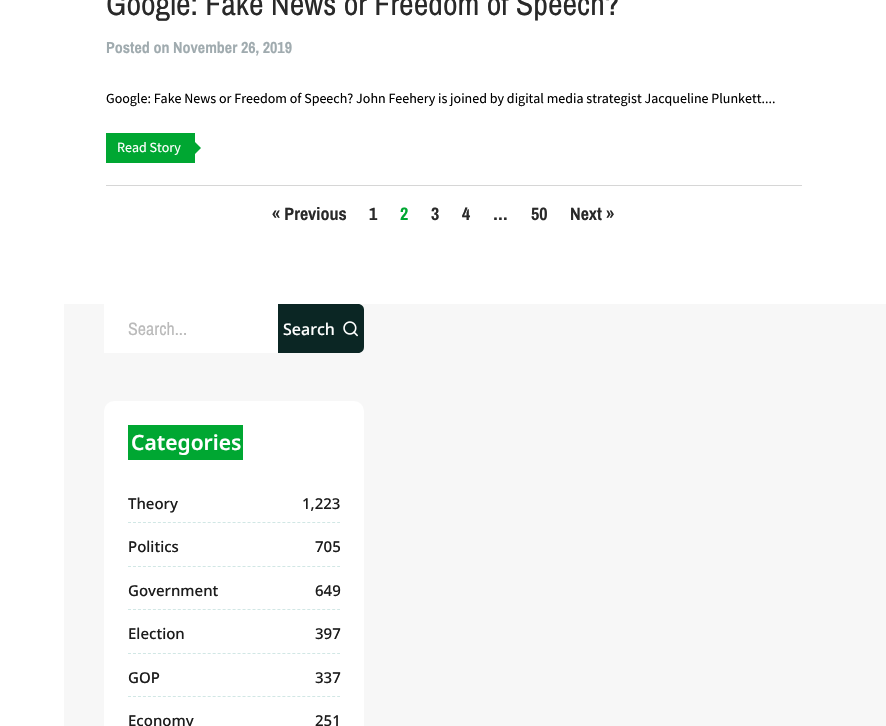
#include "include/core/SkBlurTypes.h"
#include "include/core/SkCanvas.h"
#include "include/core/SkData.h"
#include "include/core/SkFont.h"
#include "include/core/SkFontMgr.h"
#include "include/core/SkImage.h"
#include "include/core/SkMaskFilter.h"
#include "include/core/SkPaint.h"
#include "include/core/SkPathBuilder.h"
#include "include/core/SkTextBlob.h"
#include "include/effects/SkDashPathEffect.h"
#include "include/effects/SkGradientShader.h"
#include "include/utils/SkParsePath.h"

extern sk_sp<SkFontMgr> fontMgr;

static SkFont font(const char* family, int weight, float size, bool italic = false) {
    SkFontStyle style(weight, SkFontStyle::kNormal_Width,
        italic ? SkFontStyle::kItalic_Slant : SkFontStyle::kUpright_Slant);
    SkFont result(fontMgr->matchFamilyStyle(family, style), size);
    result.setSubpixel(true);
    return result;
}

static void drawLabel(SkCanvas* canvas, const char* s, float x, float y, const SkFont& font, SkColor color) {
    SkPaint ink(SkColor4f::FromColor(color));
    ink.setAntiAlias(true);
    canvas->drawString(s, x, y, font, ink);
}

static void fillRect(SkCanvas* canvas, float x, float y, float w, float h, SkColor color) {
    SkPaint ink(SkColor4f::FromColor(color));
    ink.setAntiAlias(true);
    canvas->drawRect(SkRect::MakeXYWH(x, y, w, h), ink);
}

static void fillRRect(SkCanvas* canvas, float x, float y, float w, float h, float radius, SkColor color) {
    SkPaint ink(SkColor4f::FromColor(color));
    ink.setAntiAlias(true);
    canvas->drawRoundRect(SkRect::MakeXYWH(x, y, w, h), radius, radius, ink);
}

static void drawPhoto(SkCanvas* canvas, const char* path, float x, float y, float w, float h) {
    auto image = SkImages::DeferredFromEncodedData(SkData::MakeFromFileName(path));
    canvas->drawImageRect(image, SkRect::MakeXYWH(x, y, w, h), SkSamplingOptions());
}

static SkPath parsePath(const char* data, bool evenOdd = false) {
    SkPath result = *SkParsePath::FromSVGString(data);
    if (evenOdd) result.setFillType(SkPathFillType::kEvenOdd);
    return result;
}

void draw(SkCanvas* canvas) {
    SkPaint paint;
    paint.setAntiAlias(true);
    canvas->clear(0xFFFFFFFF);
    fillRect(canvas, 106, 185, 696, 1, 0xFFD6D6D6);
    SkFont font1 = font("Archivo Narrow", 400, 32);
    drawLabel(canvas, "Google: Fake News or Freedom of Speech?", 106, 15, font1, 0xFF292929);
    SkFont font2 = font("Archivo Narrow", 700, 16);
    drawLabel(canvas, "Posted on November 26, 2019", 106, 53, font2, 0xFFA0ABAF);
    SkFont font3 = font("Source Sans Pro", 400, 14);
    drawLabel(canvas, "Google: Fake News or Freedom of Speech? John Feehery is joined by digital media strategist Jacqueline Plunkett....", 106, 103, font3, 0xFF000000);
    fillRect(canvas, 106, 133, 89, 30, 0xFF00A732);
    drawLabel(canvas, "Read Story", 117, 152, font3, 0xFFFFFFFF);
    paint.setColor(0xFF00A732);
    canvas->drawPath(parsePath("M195 154V142L201 148Z"), paint);
    SkFont font4 = font("Archivo Narrow", 700, 18);
    drawLabel(canvas, "« Previous", 272, 220, font4, 0xFF292929);
    drawLabel(canvas, "1", 369, 220, font4, 0xFF292929);
    drawLabel(canvas, "2", 400, 220, font4, 0xFF00A732);
    drawLabel(canvas, "3", 431, 220, font4, 0xFF292929);
    drawLabel(canvas, "4", 462, 220, font4, 0xFF292929);
    drawLabel(canvas, "…", 493, 220, font4, 0xFF292929);
    drawLabel(canvas, "50", 531, 220, font4, 0xFF292929);
    drawLabel(canvas, "Next »", 570, 220, font4, 0xFF292929);
    fillRect(canvas, 64, 304, 822, 422, 0xFFF7F7F7);
    fillRect(canvas, 104, 304, 174, 49, 0xFFFFFFFF);
    SkFont font5 = font("Archivo Narrow", 400, 18);
    drawLabel(canvas, "Search...", 128, 335, font5, 0xFFBABABA);
    paint.setColor(0xFF0B2624);
    canvas->drawPath(parsePath("M278 304H358C361.5 304 364 306.5 364 310V347C364 350.5 361.5 353 358 353H278Z"), paint);
    SkFont font6 = font("Noto Sans", 500, 16);
    drawLabel(canvas, "Search", 283, 335, font6, 0xFFFFFFFF);
    drawPhoto(canvas, "assets/img1.png", 343, 321, 15, 16);
    fillRRect(canvas, 104, 401, 260, 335, 10, 0xFFFFFFFF);
    fillRect(canvas, 128, 425, 115, 35, 0xFF00A732);
    SkFont font7 = font("Noto Sans", 600, 21);
    drawLabel(canvas, "Categories", 131, 450, font7, 0xFFFFFFFF);
    paint.setStroke(true);
    paint.setStrokeWidth(1);
    paint.setColor(0xFFD1E7E5);
    paint.setPathEffect(SkDashPathEffect::Make({{3, 1.98f}}, 0));
    canvas->drawPath(parsePath("M128 522.5H340"), paint);
    paint.setPathEffect(nullptr);
    SkFont font8 = font("Noto Sans", 500, 15);
    drawLabel(canvas, "Theory", 128, 509, font8, 0xFF1C1C1C);
    drawLabel(canvas, "1,223", 302, 509, font8, 0xFF1C1C1C);
    paint.setPathEffect(SkDashPathEffect::Make({{3, 1.98f}}, 0));
    canvas->drawPath(parsePath("M128 566.5H340"), paint);
    paint.setPathEffect(nullptr);
    drawLabel(canvas, "Politics", 128, 552, font8, 0xFF1C1C1C);
    drawLabel(canvas, "705", 315, 552, font8, 0xFF1C1C1C);
    paint.setPathEffect(SkDashPathEffect::Make({{3, 1.98f}}, 0));
    canvas->drawPath(parsePath("M128 609.5H340"), paint);
    paint.setPathEffect(nullptr);
    drawLabel(canvas, "Government", 128, 596, font8, 0xFF1C1C1C);
    drawLabel(canvas, "649", 315, 596, font8, 0xFF1C1C1C);
    paint.setPathEffect(SkDashPathEffect::Make({{3, 1.98f}}, 0));
    canvas->drawPath(parsePath("M128 653.5H340"), paint);
    paint.setPathEffect(nullptr);
    drawLabel(canvas, "Election", 128, 639, font8, 0xFF1C1C1C);
    drawLabel(canvas, "397", 315, 639, font8, 0xFF1C1C1C);
    paint.setPathEffect(SkDashPathEffect::Make({{3, 1.98f}}, 0));
    canvas->drawPath(parsePath("M128 696.5H340"), paint);
    paint.setPathEffect(nullptr);
    drawLabel(canvas, "GOP", 128, 683, font8, 0xFF1C1C1C);
    drawLabel(canvas, "337", 315, 683, font8, 0xFF1C1C1C);
    drawLabel(canvas, "Economy", 128, 726, font8, 0xFF1C1C1C);
    drawLabel(canvas, "251", 315, 726, font8, 0xFF1C1C1C);
}
